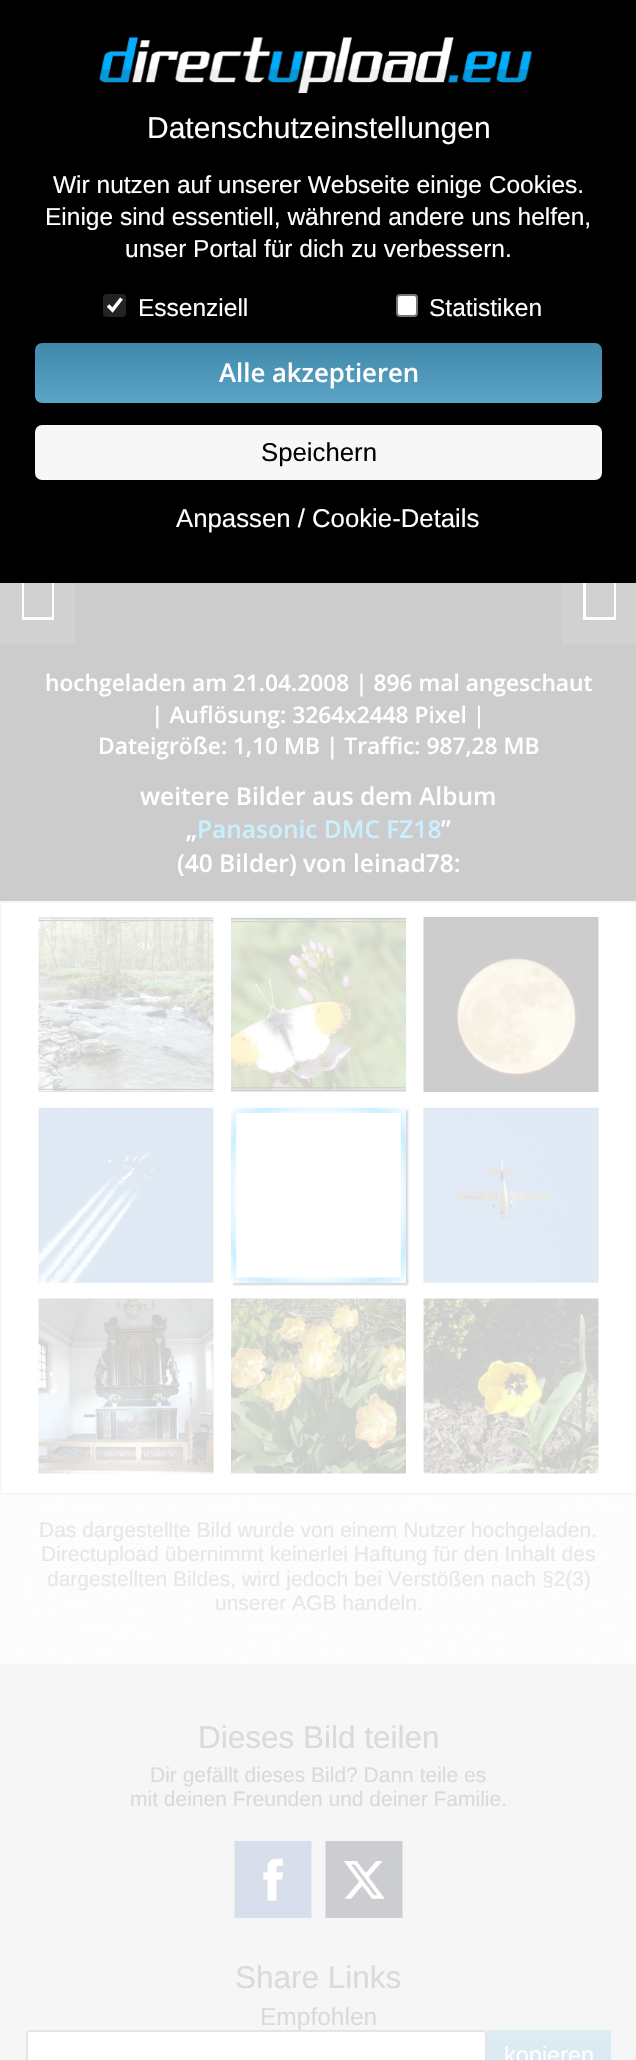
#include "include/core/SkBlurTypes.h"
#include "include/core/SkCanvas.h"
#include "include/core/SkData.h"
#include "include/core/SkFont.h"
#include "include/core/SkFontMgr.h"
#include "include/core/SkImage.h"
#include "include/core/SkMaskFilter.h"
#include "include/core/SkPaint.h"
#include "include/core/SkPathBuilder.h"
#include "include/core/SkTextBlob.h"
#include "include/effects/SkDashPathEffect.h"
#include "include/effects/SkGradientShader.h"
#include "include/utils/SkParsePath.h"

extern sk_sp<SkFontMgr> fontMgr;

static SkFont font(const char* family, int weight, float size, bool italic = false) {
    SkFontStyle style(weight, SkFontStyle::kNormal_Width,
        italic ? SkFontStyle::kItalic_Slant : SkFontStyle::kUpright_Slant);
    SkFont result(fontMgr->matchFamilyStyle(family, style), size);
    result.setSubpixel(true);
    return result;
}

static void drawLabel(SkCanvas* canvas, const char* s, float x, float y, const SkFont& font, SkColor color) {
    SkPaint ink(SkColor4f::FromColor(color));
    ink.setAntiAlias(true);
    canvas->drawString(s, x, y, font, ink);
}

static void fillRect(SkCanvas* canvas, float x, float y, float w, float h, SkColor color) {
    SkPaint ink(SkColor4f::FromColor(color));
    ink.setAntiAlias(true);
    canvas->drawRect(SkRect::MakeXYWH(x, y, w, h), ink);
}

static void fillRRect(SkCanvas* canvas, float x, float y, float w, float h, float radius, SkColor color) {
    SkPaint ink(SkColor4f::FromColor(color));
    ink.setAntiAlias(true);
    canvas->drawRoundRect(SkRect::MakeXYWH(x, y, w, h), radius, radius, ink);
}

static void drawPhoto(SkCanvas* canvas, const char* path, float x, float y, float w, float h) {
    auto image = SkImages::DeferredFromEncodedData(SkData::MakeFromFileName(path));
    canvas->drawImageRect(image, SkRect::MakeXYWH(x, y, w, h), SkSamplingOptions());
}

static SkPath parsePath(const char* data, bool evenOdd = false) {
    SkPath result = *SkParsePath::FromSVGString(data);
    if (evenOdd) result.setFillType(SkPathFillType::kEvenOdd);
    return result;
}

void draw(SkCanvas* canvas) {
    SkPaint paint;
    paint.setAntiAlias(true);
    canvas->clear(0xFFFFFFFF);
    drawPhoto(canvas, "assets/img1.png", 0, 1495, 636, 169);
    fillRect(canvas, 0, 583, 636, 318, 0xFFCCCCCC);
    fillRect(canvas, 0, 583, 75, 61, 0xFFD1D1D1);
    paint.setColor(0xFFFFFFFF);
    canvas->drawPath(parsePath("M22 579H54V620H22ZM24 581V617H52V581Z"), paint);
    fillRect(canvas, 562, 583, 74, 61, 0xFFD1D1D1);
    canvas->drawPath(parsePath("M583 579H616V620H583ZM586 581V617H614V581Z"), paint);
    fillRect(canvas, 0, 0, 636, 583, 0xFF000000);
    drawPhoto(canvas, "assets/img2.png", 99, 37, 433, 56);
    SkFont font1 = font("Liberation Sans", 400, 30);
    drawLabel(canvas, "Datenschutzeinstellungen", 147, 138, font1, 0xFFFFFFFF);
    SkFont font2 = font("Liberation Sans", 400, 24.5f);
    drawLabel(canvas, "Wir nutzen auf unserer Webseite einige Cookies.", 53, 193, font2, 0xFFFFFFFF);
    drawLabel(canvas, "Einige sind essentiell, während andere uns helfen,", 45, 225, font2, 0xFFFFFFFF);
    drawLabel(canvas, "unser Portal für dich zu verbessern.", 125, 257, font2, 0xFFFFFFFF);
    fillRRect(canvas, 103, 294, 23, 23, 4, 0xFF232323);
    paint.setStroke(true);
    paint.setStrokeWidth(3.6f);
    canvas->drawPath(parsePath("M108 305.5L112.5 310L121.5 298.5"), paint);
    drawLabel(canvas, "Essenziell", 138, 316, font2, 0xFFFFFFFF);
    paint.setStroke(false);
    canvas->drawRoundRect(SkRect::MakeXYWH(397, 295, 20, 21), 3, 3, paint);
    paint.setStroke(true);
    paint.setStrokeWidth(2);
    paint.setColor(0xFF767676);
    canvas->drawRoundRect(SkRect::MakeXYWH(397, 295, 20, 21), 3, 3, paint);
    drawLabel(canvas, "Statistiken", 429, 316, font2, 0xFFFFFFFF);
    paint.setStroke(false);
    {
        const SkColor colors[] = {0xFF4189AB, 0xFF5BA4C6};
        const float stops[] = {0, 1};
        const SkPoint ends[] = {{319, 343}, {319, 403}};
        paint.setShader(SkGradientShader::MakeLinear(ends, colors, stops, 2, SkTileMode::kClamp));
        paint.setAlpha(255);
    }
    canvas->drawRoundRect(SkRect::MakeXYWH(35, 343, 567, 60), 7, 7, paint);
    SkFont font3 = font("Open Sans", 600, 25.75f);
    drawLabel(canvas, "Alle akzeptieren", 219, 382, font3, 0xFFFFFFFF);
    fillRRect(canvas, 35, 425, 567, 55, 7, 0xFFF7F7F7);
    SkFont font4 = font("Liberation Sans", 400, 25.75f);
    drawLabel(canvas, "Speichern", 261, 461, font4, 0xFF000000);
    drawLabel(canvas, "Anpassen / Cookie-Details", 176, 527, font4, 0xFFFFFFFF);
    SkFont font5 = font("Open Sans", 600, 22.75f);
    drawLabel(canvas, "hochgeladen am 21.04.2008 | 896 mal angeschaut", 45, 691, font5, 0xFFFFFFFF);
    drawLabel(canvas, "| Auflösung: 3264x2448 Pixel |", 151, 723, font5, 0xFFFFFFFF);
    drawLabel(canvas, "Dateigröße: 1,10 MB | Traffic: 987,28 MB", 98, 754, font5, 0xFFFFFFFF);
    SkFont font6 = font("Open Sans", 600, 24.5f);
    drawLabel(canvas, "weitere Bilder aus dem Album", 140, 805, font6, 0xFFFFFFFF);
    drawLabel(canvas, "Panasonic DMC FZ18", 197, 838, font6, 0xFFCCEFFF);
    drawLabel(canvas, "”", 441, 838, font6, 0xFFFFFFFF);
    drawLabel(canvas, "„", 186, 838, font6, 0xFFFFFFFF);
    drawLabel(canvas, "(40 Bilder) von leinad78:", 177, 872, font6, 0xFFFFFFFF);
    paint.setStroke(true);
    paint.setShader(nullptr);
    paint.setColor(0xFFF6F6F6);
    canvas->drawRect(SkRect::MakeXYWH(1, 902, 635, 592), paint);
    drawPhoto(canvas, "assets/img3.png", 38, 917, 176, 175);
    drawPhoto(canvas, "assets/img4.png", 231, 917, 175, 175);
    drawPhoto(canvas, "assets/img5.png", 423, 917, 176, 175);
    drawPhoto(canvas, "assets/img6.png", 38, 1107, 176, 176);
    canvas->save();
    canvas->clipPath(parsePath("M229 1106H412V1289H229ZM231 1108H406V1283H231Z", true), true);
    paint.setStroke(false);
    paint.setColor(0xCCCCCCCC);
    paint.setMaskFilter(SkMaskFilter::MakeBlur(kNormal_SkBlurStyle, 1));
    canvas->drawRect(SkRect::MakeXYWH(233, 1110, 175, 175), paint);
    paint.setMaskFilter(nullptr);
    canvas->restore();
    drawPhoto(canvas, "assets/img7.png", 231, 1107, 175, 176);
    drawPhoto(canvas, "assets/img8.png", 423, 1107, 176, 176);
    drawPhoto(canvas, "assets/img9.png", 38, 1298, 176, 176);
    drawPhoto(canvas, "assets/img10.png", 231, 1298, 175, 176);
    drawPhoto(canvas, "assets/img11.png", 423, 1298, 176, 176);
    SkFont font7 = font("Liberation Sans", 400, 21);
    drawLabel(canvas, "Das dargestellte Bild wurde von einem Nutzer hochgeladen.", 39, 1537, font7, 0xFFE7E7E7);
    drawLabel(canvas, "Directupload übernimmt keinerlei Haftung für den Inhalt des", 41, 1561, font7, 0xFFE7E7E7);
    drawLabel(canvas, "dargestellten Bildes, wird jedoch bei Verstößen nach §2(3)", 47, 1586, font7, 0xFFE7E7E7);
    drawLabel(canvas, "unserer AGB handeln.", 215, 1610, font7, 0xFFE7E7E7);
    fillRect(canvas, 0, 1664, 636, 396, 0xFFF6F6F6);
    SkFont font8 = font("Liberation Sans", 400, 31.5f);
    drawLabel(canvas, "Dieses Bild teilen", 198, 1748, font8, 0xFFDADADA);
    drawLabel(canvas, "Dir gefällt dieses Bild? Dann teile es", 150, 1782, font7, 0xFFDADADA);
    drawLabel(canvas, "mit deinen Freunden und deiner Familie.", 130, 1806, font7, 0xFFDADADA);
    drawPhoto(canvas, "assets/img12.png", 234, 1841, 78, 77);
    drawPhoto(canvas, "assets/img13.png", 325, 1841, 78, 77);
    drawLabel(canvas, "Share Links", 235, 1988, font8, 0xFFDADADA);
    drawLabel(canvas, "Empfohlen", 260, 2025, font2, 0xFFDADADA);
    paint.setColor(0xFFFFFFFF);
    canvas->drawRoundRect(SkRect::MakeXYWH(27, 2031, 459, 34), 3, 3, paint);
    paint.setStroke(true);
    paint.setColor(0xFFE4E4E4);
    canvas->drawRoundRect(SkRect::MakeXYWH(27, 2031, 459, 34), 3, 3, paint);
    paint.setStroke(false);
    {
        const SkColor colors[] = {0xFFDEEDF4, 0xFFD9E7EE};
        const float stops[] = {0, 1};
        const SkPoint ends[] = {{549, 2030}, {549, 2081}};
        paint.setShader(SkGradientShader::MakeLinear(ends, colors, stops, 2, SkTileMode::kClamp));
        paint.setAlpha(255);
    }
    canvas->drawRect(SkRect::MakeXYWH(487, 2030, 124, 30), paint);
    SkFont font9 = font("Liberation Sans", 400, 23.5f);
    drawLabel(canvas, "kopieren", 504, 2063, font9, 0xFFFFFFFF);
}
